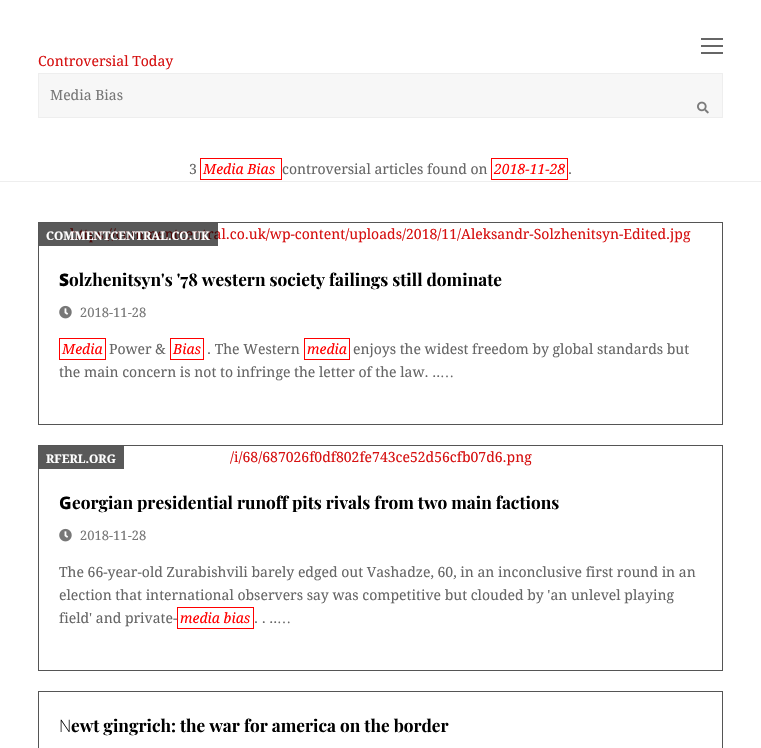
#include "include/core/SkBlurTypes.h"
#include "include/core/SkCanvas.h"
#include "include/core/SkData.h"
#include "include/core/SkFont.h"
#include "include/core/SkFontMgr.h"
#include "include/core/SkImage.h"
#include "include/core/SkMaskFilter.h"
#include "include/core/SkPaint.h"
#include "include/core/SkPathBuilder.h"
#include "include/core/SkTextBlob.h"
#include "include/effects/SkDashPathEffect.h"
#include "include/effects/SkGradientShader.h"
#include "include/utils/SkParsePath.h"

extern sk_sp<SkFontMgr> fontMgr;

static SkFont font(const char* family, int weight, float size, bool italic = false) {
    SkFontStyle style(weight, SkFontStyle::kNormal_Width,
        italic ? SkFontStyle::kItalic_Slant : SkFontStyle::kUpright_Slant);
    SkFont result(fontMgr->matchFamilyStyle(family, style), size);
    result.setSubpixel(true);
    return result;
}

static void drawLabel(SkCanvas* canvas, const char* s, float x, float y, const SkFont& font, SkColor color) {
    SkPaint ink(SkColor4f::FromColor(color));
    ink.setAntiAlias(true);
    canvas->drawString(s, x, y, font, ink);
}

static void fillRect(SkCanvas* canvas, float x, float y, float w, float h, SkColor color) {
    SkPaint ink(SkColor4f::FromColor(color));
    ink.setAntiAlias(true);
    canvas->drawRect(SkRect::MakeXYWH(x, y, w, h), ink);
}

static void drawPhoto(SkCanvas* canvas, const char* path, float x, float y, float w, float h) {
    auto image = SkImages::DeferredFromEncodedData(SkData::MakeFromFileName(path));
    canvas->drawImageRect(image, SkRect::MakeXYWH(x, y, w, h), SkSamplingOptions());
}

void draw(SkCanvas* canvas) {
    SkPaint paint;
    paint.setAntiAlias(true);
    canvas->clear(0xFFFFFFFF);
    fillRect(canvas, 701, 45, 22, 2, 0xFF666666);
    fillRect(canvas, 701, 38, 22, 2, 0xFF666666);
    fillRect(canvas, 701, 52, 22, 2, 0xFF666666);
    SkFont font1 = font("Droid Serif", 400, 14);
    drawLabel(canvas, "Controversial Today", 38, 66, font1, 0xFFD61111);
    paint.setColor(0xFFF7F7F7);
    canvas->drawRect(SkRect::MakeXYWH(38.5f, 73.5f, 684, 44), paint);
    paint.setStroke(true);
    paint.setStrokeWidth(1);
    paint.setColor(0xFFEEEEEE);
    canvas->drawRect(SkRect::MakeXYWH(38.5f, 73.5f, 684, 44), paint);
    drawLabel(canvas, "Media Bias", 50, 100, font1, 0xFF777777);
    drawPhoto(canvas, "assets/img1.png", 697, 101, 12, 13);
    drawLabel(canvas, "3", 189, 174, font1, 0xFF666666);
    paint.setColor(0xFFFF0000);
    canvas->drawRect(SkRect::MakeXYWH(200.5f, 158.5f, 81, 21), paint);
    SkFont font2 = font("Droid Serif", 400, 14, true);
    drawLabel(canvas, "Media Bias", 203, 174, font2, 0xFFFF0000);
    drawLabel(canvas, "controversial articles found on", 282, 174, font1, 0xFF666666);
    canvas->drawRect(SkRect::MakeXYWH(491.5f, 158.5f, 76, 21), paint);
    drawLabel(canvas, "2018-11-28", 494, 174, font2, 0xFFFF0000);
    drawLabel(canvas, ".", 568, 174, font1, 0xFF666666);
    fillRect(canvas, 0, 181, 761, 1, 0xFFEEEEEE);
    paint.setColor(0xFF555555);
    canvas->drawRect(SkRect::MakeXYWH(38.5f, 222.5f, 684, 202), paint);
    drawLabel(canvas, "https://commentcentral.co.uk/wp-content/uploads/2018/11/Aleksandr-Solzhenitsyn-Edited.jpg", 70, 239, font1, 0xFFD61111);
    fillRect(canvas, 39, 223, 179, 23, 0xA6000000);
    SkFont font3 = font("Droid Serif", 700, 11.8f);
    drawLabel(canvas, "COMMENTCENTRAL.CO.UK", 46, 240, font3, 0xFFFFFFFF);
    SkFont font4 = font("Noto Sans", 900, 17.25f);
    drawLabel(canvas, "S", 59, 286, font4, 0xFF000000);
    SkFont font5 = font("Playfair Display", 700, 17.25f);
    drawLabel(canvas, "olzhenitsyn's '78 western society failings still dominate", 69, 286, font5, 0xFF000000);
    drawPhoto(canvas, "assets/img2.png", 59, 305, 13, 14);
    SkFont font6 = font("Droid Serif", 400, 13);
    drawLabel(canvas, "2018-11-28", 80, 317, font6, 0xFF777777);
    paint.setColor(0xFFFF0000);
    canvas->drawRect(SkRect::MakeXYWH(59.5f, 338.5f, 46, 21), paint);
    drawLabel(canvas, "Media", 62, 354, font2, 0xFFFF0000);
    drawLabel(canvas, "Power &", 109, 354, font1, 0xFF666666);
    canvas->drawRect(SkRect::MakeXYWH(170.5f, 338.5f, 33, 21), paint);
    drawLabel(canvas, "Bias", 173, 354, font2, 0xFFFF0000);
    drawLabel(canvas, ". The Western", 207, 354, font1, 0xFF666666);
    canvas->drawRect(SkRect::MakeXYWH(304.5f, 338.5f, 45, 21), paint);
    drawLabel(canvas, "media", 307, 354, font2, 0xFFFF0000);
    drawLabel(canvas, "enjoys the widest freedom by global standards but", 353, 354, font1, 0xFF666666);
    drawLabel(canvas, "the main concern is not to infringe the letter of the law. ..", 59, 377, font1, 0xFF666666);
    SkFont font7 = font("Liberation Serif", 400, 14);
    drawLabel(canvas, "…", 440, 377, font7, 0xFF666666);
    paint.setColor(0xFF555555);
    canvas->drawRect(SkRect::MakeXYWH(38.5f, 445.5f, 684, 225), paint);
    fillRect(canvas, 39, 446, 85, 23, 0xFF595959);
    drawLabel(canvas, "RFERL.ORG", 46, 463, font3, 0xFFFFFFFF);
    drawLabel(canvas, "/i/68/687026f0df802fe743ce52d56cfb07d6.png", 230, 462, font1, 0xFFD61111);
    SkFont font8 = font("Noto Sans", 800, 17.25f);
    drawLabel(canvas, "G", 59, 509, font8, 0xFF000000);
    drawLabel(canvas, "eorgian presidential runoff pits rivals from two main factions", 72, 509, font5, 0xFF000000);
    drawPhoto(canvas, "assets/img2.png", 59, 528, 13, 14);
    drawLabel(canvas, "2018-11-28", 80, 540, font6, 0xFF777777);
    drawLabel(canvas, "The 66-year-old Zurabishvili barely edged out Vashadze, 60, in an inconclusive first round in an", 59, 577, font1, 0xFF666666);
    drawLabel(canvas, "election that international observers say was competitive but clouded by 'an unlevel playing", 59, 600, font1, 0xFF666666);
    drawLabel(canvas, "field' and private-", 59, 623, font1, 0xFF666666);
    paint.setColor(0xFFFF0000);
    canvas->drawRect(SkRect::MakeXYWH(177.5f, 607.5f, 76, 21), paint);
    drawLabel(canvas, "media bias", 180, 623, font2, 0xFFFF0000);
    drawLabel(canvas, ". . ..", 254, 623, font1, 0xFF666666);
    drawLabel(canvas, "…", 277, 623, font7, 0xFF666666);
    paint.setColor(0xFF555555);
    canvas->drawRect(SkRect::MakeXYWH(38.5f, 691.5f, 684, 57), paint);
    SkFont font9 = font("Noto Sans", 200, 17.25f);
    drawLabel(canvas, "N", 59, 732, font9, 0xFF000000);
    drawLabel(canvas, "ewt gingrich: the war for america on the border", 71, 732, font5, 0xFF000000);
}
